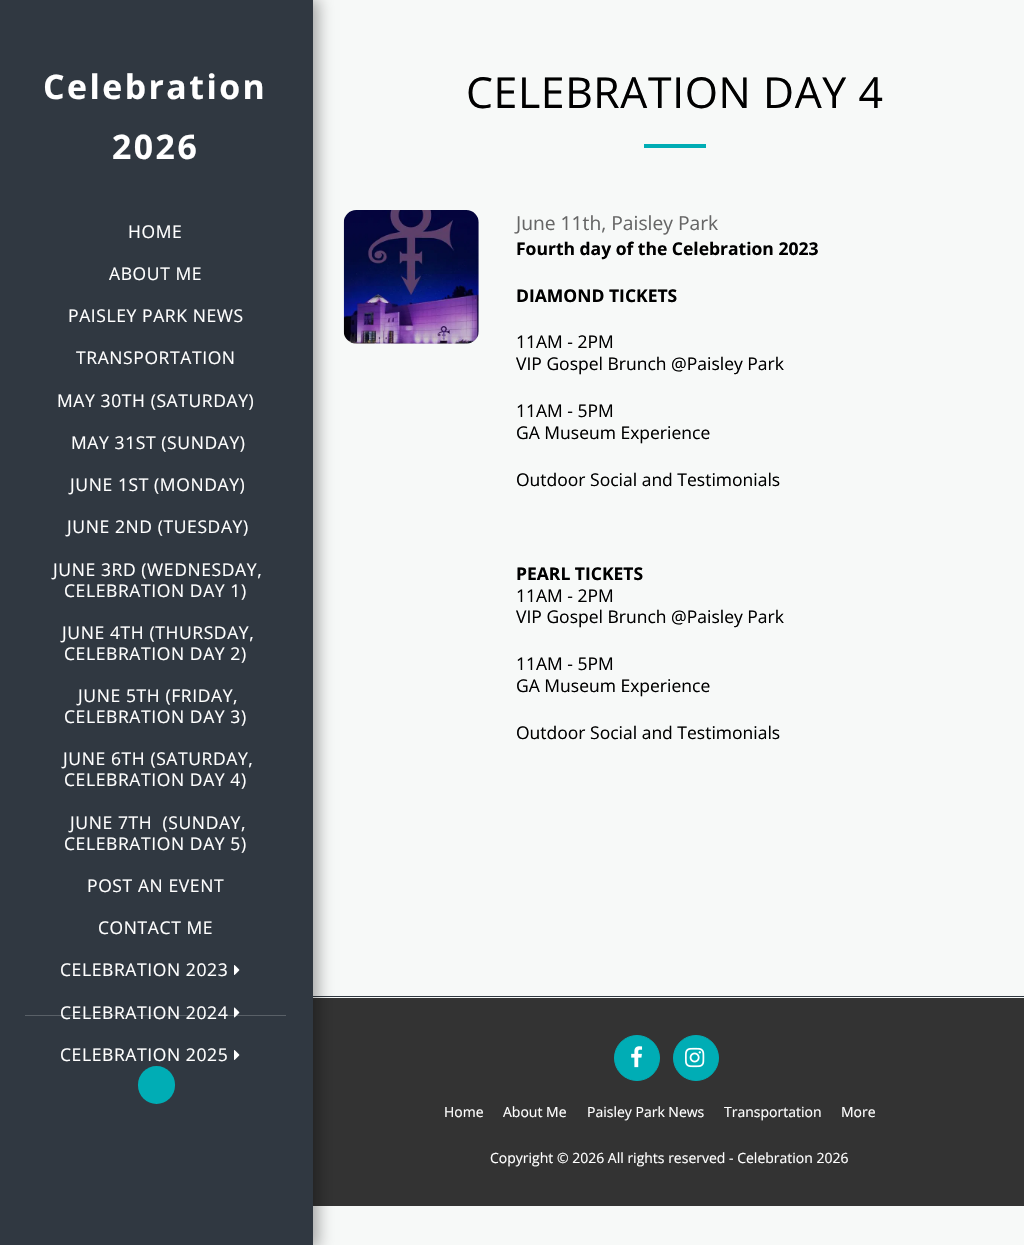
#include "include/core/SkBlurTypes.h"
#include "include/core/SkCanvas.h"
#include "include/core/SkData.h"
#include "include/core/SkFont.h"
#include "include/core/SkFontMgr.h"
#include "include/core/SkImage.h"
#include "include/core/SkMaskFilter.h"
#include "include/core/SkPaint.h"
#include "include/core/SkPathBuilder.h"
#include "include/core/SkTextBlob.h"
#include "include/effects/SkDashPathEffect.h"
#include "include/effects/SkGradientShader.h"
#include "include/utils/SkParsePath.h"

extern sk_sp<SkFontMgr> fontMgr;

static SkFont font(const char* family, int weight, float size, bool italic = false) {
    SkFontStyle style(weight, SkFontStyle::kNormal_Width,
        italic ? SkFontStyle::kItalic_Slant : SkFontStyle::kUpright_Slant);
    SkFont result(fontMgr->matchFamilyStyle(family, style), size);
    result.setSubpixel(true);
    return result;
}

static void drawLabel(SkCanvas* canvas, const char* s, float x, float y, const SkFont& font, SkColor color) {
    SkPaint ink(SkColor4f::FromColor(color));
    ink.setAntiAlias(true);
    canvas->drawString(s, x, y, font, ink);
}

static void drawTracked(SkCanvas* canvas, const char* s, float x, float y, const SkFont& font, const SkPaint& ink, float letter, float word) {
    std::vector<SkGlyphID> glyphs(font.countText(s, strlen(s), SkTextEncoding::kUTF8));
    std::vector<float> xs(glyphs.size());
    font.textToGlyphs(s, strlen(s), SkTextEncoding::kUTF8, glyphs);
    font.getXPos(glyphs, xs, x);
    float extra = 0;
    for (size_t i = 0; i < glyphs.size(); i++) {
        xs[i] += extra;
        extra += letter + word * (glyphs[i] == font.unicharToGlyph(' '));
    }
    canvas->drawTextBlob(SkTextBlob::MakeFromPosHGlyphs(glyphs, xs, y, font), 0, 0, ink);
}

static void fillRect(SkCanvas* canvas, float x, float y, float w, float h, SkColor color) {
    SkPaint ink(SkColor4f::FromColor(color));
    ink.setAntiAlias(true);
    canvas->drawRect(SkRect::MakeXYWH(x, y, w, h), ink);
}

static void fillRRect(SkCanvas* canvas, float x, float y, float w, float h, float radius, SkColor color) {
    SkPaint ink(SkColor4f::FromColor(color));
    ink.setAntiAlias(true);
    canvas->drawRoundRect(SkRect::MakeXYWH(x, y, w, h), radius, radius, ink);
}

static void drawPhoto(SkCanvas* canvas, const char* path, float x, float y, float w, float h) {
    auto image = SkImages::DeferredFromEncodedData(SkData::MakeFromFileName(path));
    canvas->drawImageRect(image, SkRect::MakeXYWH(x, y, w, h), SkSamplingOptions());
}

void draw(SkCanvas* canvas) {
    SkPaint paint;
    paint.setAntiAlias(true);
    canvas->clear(0xFFF7F9F8);
    fillRect(canvas, 313, 996, 711, 1, 0xFF303841);
    fillRect(canvas, 313, 998, 711, 208, 0xFF333333);
    paint.setColor(0x59000000);
    paint.setMaskFilter(SkMaskFilter::MakeBlur(kNormal_SkBlurStyle, 7.5f));
    canvas->drawRect(SkRect::MakeXYWH(0, -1, 318, 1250), paint);
    paint.setMaskFilter(nullptr);
    fillRect(canvas, 0, 0, 313, 1245, 0xFF303841);
    SkFont font1 = font("Open Sans", 700, 33.75f);
    paint.setColor(0xFFFFFFFF);
    drawTracked(canvas, "Celebration", 43, 99, font1, paint, 2.5f, 0);
    drawTracked(canvas, "2026", 112, 159, font1, paint, 2.5f, 0);
    SkFont font2 = font("Open Sans", 400, 17.5f);
    drawTracked(canvas, "HOME", 128, 238, font2, paint, 0.6f, 0);
    drawTracked(canvas, "ABOUT ME", 109, 280, font2, paint, 0.6f, 0);
    drawTracked(canvas, "PAISLEY PARK NEWS", 68, 322, font2, paint, 0.6f, 0);
    drawTracked(canvas, "TRANSPORTATION", 76, 364, font2, paint, 0.6f, 0);
    drawTracked(canvas, "MAY 30TH (SATURDAY)", 57, 407, font2, paint, 0.6f, 0);
    drawTracked(canvas, "MAY 31ST (SUNDAY)", 71, 449, font2, paint, 0.6f, 0);
    drawTracked(canvas, "JUNE 1ST (MONDAY)", 70, 491, font2, paint, 0.6f, 0);
    drawTracked(canvas, "JUNE 2ND (TUESDAY)", 67, 533, font2, paint, 0.6f, 0);
    drawTracked(canvas, "JUNE 3RD (WEDNESDAY,", 53, 576, font2, paint, 0.6f, 0);
    drawTracked(canvas, "CELEBRATION DAY 1)", 64, 597, font2, paint, 0.6f, 0);
    drawTracked(canvas, "JUNE 4TH (THURSDAY,", 62, 639, font2, paint, 0.6f, 0);
    drawTracked(canvas, "CELEBRATION DAY 2)", 64, 660, font2, paint, 0.6f, 0);
    drawTracked(canvas, "JUNE 5TH (FRIDAY,", 78, 702, font2, paint, 0.6f, 0);
    drawTracked(canvas, "CELEBRATION DAY 3)", 64, 723, font2, paint, 0.6f, 0);
    drawTracked(canvas, "JUNE 6TH (SATURDAY,", 63, 765, font2, paint, 0.6f, 0);
    drawTracked(canvas, "CELEBRATION DAY 4)", 64, 786, font2, paint, 0.6f, 0);
    drawTracked(canvas, "JUNE 7TH  (SUNDAY,", 70, 829, font2, paint, 0.6f, 0);
    drawTracked(canvas, "CELEBRATION DAY 5)", 64, 850, font2, paint, 0.6f, 0);
    drawTracked(canvas, "POST AN EVENT", 87, 892, font2, paint, 0.6f, 0);
    drawTracked(canvas, "CONTACT ME", 98, 934, font2, paint, 0.6f, 0);
    drawTracked(canvas, "CELEBRATION 2023", 60, 976, font2, paint, 0.6f, 0);
    drawPhoto(canvas, "assets/img1.png", 234, 965, 6, 10);
    fillRect(canvas, 25, 1015, 261, 1, 0xFF596067);
    drawTracked(canvas, "CELEBRATION 2024", 60, 1019, font2, paint, 0.6f, 0);
    drawPhoto(canvas, "assets/img2.png", 234, 1007, 6, 11);
    drawTracked(canvas, "CELEBRATION 2025", 60, 1061, font2, paint, 0.6f, 0);
    drawPhoto(canvas, "assets/img1.png", 234, 1050, 6, 10);
    fillRRect(canvas, 138, 1066, 37, 38, 18.5f, 0xFF00ADB5);
    SkFont font3 = font("Open Sans", 400, 42.75f);
    paint.setColor(0xFF000000);
    drawTracked(canvas, "CELEBRATION DAY 4", 466, 108, font3, paint, 0.6f, 0);
    fillRect(canvas, 644, 144, 62, 4, 0xFF00ADB5);
    drawPhoto(canvas, "assets/img3.png", 343, 210, 136, 134);
    SkFont font4 = font("Open Sans", 400, 19.25f);
    drawLabel(canvas, "June 11th, Paisley Park", 516, 230, font4, 0xFF666666);
    SkFont font5 = font("Open Sans", 700, 17.5f);
    drawLabel(canvas, "Fourth day of the Celebration 2023", 516, 255, font5, 0xFF000000);
    drawLabel(canvas, "DIAMOND TICKETS", 516, 302, font5, 0xFF000000);
    drawLabel(canvas, "11AM - 2PM", 516, 348, font2, 0xFF000000);
    drawLabel(canvas, "VIP Gospel Brunch @Paisley Park", 516, 370, font2, 0xFF000000);
    drawLabel(canvas, "11AM - 5PM", 516, 417, font2, 0xFF000000);
    drawLabel(canvas, "GA Museum Experience", 516, 439, font2, 0xFF000000);
    drawLabel(canvas, "Outdoor Social and Testimonials", 516, 486, font2, 0xFF000000);
    drawLabel(canvas, "PEARL TICKETS", 516, 580, font5, 0xFF000000);
    drawLabel(canvas, "11AM - 2PM", 516, 602, font2, 0xFF000000);
    drawLabel(canvas, "VIP Gospel Brunch @Paisley Park", 516, 623, font2, 0xFF000000);
    drawLabel(canvas, "11AM - 5PM", 516, 670, font2, 0xFF000000);
    drawLabel(canvas, "GA Museum Experience", 516, 692, font2, 0xFF000000);
    drawLabel(canvas, "Outdoor Social and Testimonials", 516, 739, font2, 0xFF000000);
    paint.setColor(0xFF00ADB5);
    canvas->drawCircle(637, 1058, 22.5f, paint);
    paint.setStroke(true);
    paint.setStrokeWidth(1);
    canvas->drawCircle(637, 1058, 22.5f, paint);
    drawPhoto(canvas, "assets/img4.png", 631, 1046, 12, 22);
    paint.setStroke(false);
    canvas->drawCircle(696, 1058, 22.5f, paint);
    paint.setStroke(true);
    canvas->drawCircle(696, 1058, 22.5f, paint);
    drawPhoto(canvas, "assets/img5.png", 685, 1047, 20, 21);
    SkFont font6 = font("Open Sans", 400, 14);
    drawLabel(canvas, "Home", 444, 1117, font6, 0xFFFFFFFF);
    drawLabel(canvas, "About Me", 503, 1117, font6, 0xFFFFFFFF);
    drawLabel(canvas, "Paisley Park News", 587, 1117, font6, 0xFFFFFFFF);
    drawLabel(canvas, "Transportation", 724, 1117, font6, 0xFFFFFFFF);
    drawLabel(canvas, "More", 841, 1117, font6, 0xFFFFFFFF);
    drawLabel(canvas, "Copyright © 2026 All rights reserved - Celebration 2026", 490, 1163, font6, 0xFFFFFFFF);
}
